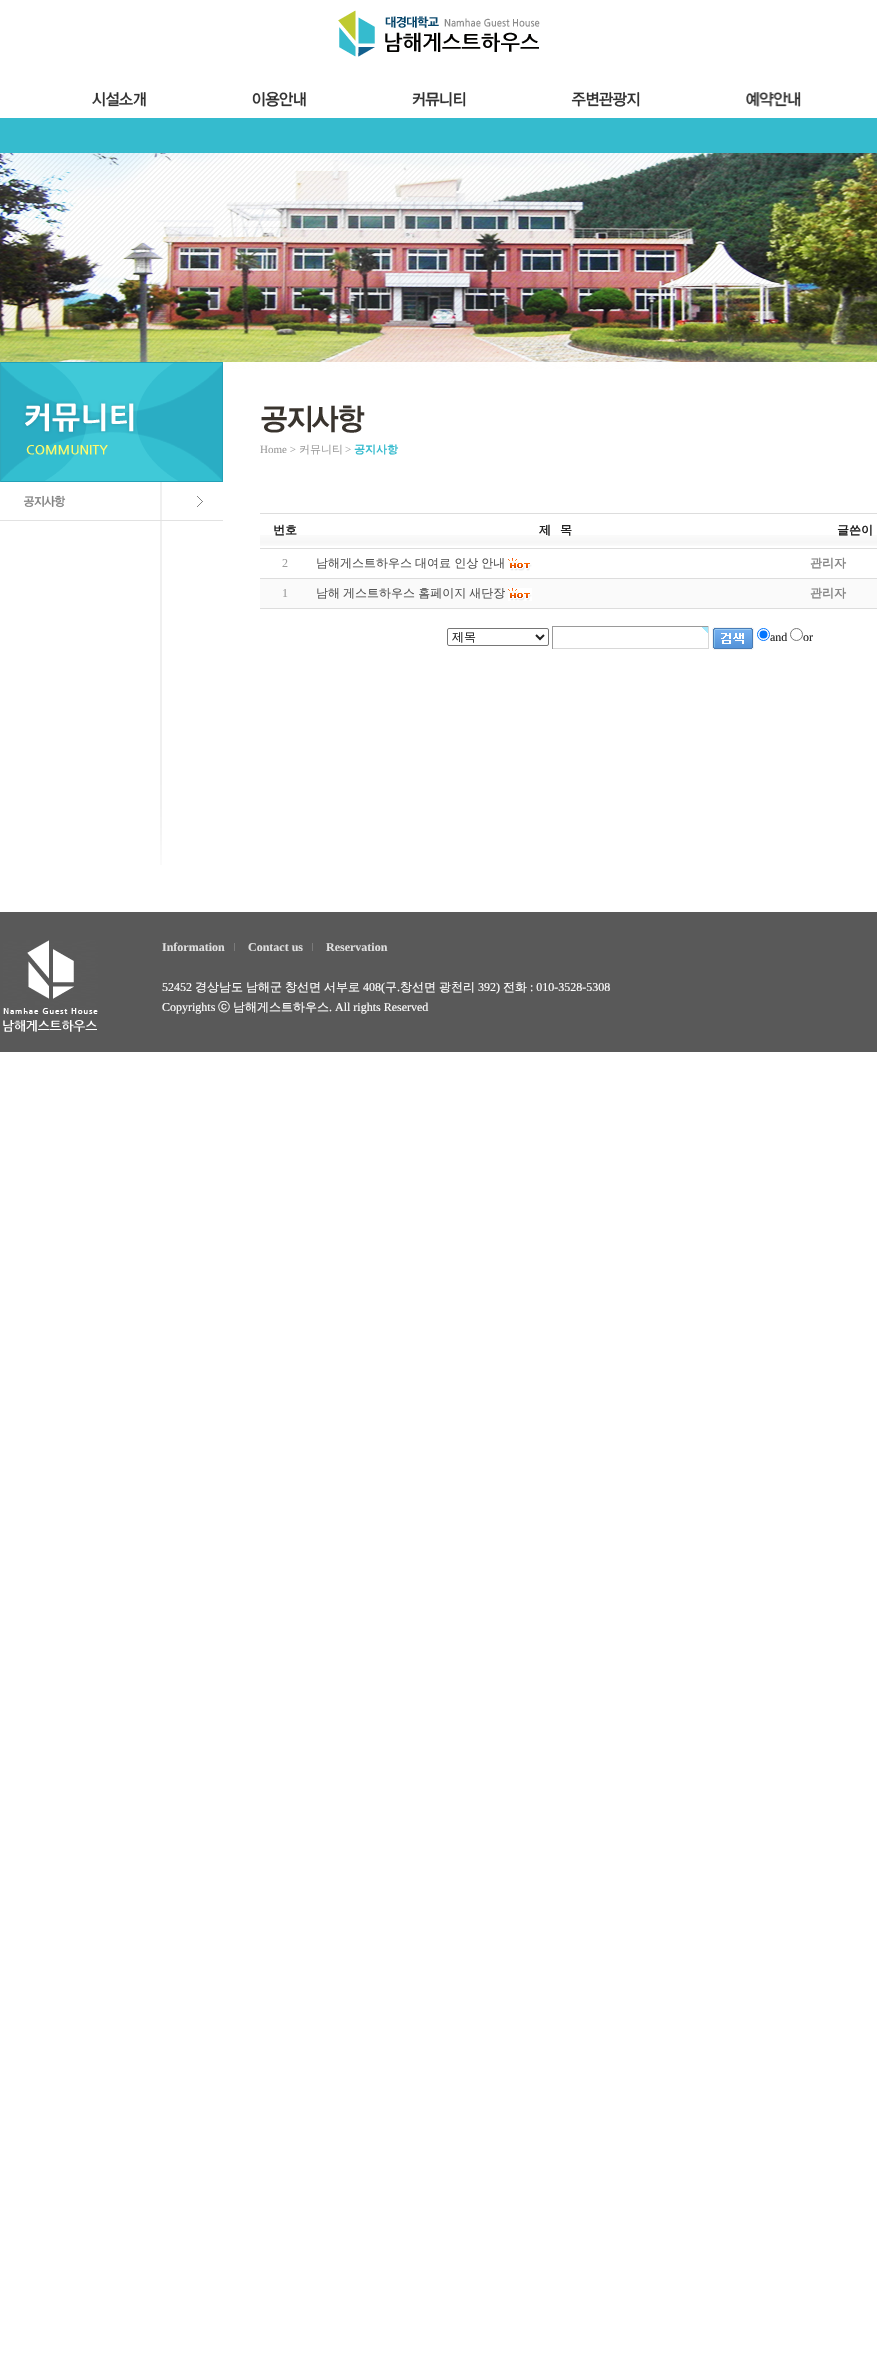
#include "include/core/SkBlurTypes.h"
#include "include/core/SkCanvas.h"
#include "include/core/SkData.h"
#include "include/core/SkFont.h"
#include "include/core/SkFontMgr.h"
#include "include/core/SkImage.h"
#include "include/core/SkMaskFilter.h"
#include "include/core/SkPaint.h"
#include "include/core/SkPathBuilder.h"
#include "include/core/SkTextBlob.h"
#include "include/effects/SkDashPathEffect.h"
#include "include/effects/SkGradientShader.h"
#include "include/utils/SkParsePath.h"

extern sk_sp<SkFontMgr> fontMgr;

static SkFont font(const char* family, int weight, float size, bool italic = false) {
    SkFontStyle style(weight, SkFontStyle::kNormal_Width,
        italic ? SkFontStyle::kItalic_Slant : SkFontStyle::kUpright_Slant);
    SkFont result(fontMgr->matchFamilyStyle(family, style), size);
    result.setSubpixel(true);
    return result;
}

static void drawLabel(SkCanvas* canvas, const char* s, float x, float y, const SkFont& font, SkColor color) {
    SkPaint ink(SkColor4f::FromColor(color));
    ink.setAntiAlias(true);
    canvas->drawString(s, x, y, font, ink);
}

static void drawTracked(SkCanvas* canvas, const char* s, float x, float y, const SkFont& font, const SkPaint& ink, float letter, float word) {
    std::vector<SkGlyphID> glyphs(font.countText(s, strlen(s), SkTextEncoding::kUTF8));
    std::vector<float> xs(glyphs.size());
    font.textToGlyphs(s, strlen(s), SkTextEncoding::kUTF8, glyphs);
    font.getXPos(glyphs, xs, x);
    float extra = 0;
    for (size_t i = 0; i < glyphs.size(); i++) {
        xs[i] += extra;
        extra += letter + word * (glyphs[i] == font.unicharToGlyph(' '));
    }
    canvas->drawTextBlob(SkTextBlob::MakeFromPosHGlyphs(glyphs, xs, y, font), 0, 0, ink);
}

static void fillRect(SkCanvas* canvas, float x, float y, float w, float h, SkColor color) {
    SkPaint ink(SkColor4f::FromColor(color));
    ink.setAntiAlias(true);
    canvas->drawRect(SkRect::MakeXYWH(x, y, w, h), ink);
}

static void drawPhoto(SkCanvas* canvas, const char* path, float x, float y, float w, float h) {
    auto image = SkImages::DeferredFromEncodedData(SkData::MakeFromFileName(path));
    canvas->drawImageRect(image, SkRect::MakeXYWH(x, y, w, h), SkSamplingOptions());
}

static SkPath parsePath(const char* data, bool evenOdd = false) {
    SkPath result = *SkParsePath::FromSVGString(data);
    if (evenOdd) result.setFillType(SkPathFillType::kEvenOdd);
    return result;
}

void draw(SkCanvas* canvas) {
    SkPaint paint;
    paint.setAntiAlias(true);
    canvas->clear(0xFFFFFFFF);
    fillRect(canvas, 0, 118, 877, 35, 0xFF35BBCE);
    drawPhoto(canvas, "assets/img1.png", 338, 10, 202, 47);
    drawPhoto(canvas, "assets/img2.png", 92, 92, 54, 15);
    drawPhoto(canvas, "assets/img3.png", 252, 91, 54, 16);
    drawPhoto(canvas, "assets/img4.png", 412, 92, 54, 15);
    drawPhoto(canvas, "assets/img5.png", 571, 92, 69, 15);
    drawPhoto(canvas, "assets/img6.png", 746, 92, 55, 15);
    drawPhoto(canvas, "assets/img7.png", 0, 153, 877, 712);
    drawPhoto(canvas, "assets/img8.png", 0, 362, 223, 120);
    fillRect(canvas, 0, 520, 223, 1, 0xFFE2E2E2);
    drawPhoto(canvas, "assets/img9.png", 197, 496, 6, 11);
    drawPhoto(canvas, "assets/img10.png", 23, 495, 43, 13);
    drawPhoto(canvas, "assets/img11.png", 261, 405, 104, 28);
    SkFont font1 = font("Liberation Serif", 400, 11);
    drawLabel(canvas, "Home >", 260, 453, font1, 0xFF9C9C9C);
    SkFont font2 = font("WenQuanYi Zen Hei", 500, 11);
    drawLabel(canvas, "커뮤니티", 299, 453, font2, 0xFF9C9C9C);
    drawLabel(canvas, ">", 345, 453, font1, 0xFF9C9C9C);
    SkFont font3 = font("WenQuanYi Zen Hei", 700, 11);
    drawLabel(canvas, "공지사항", 354, 453, font3, 0xFF35BBCE);
    drawPhoto(canvas, "assets/img12.png", 260, 535, 50, 11);
    SkFont font4 = font("WenQuanYi Zen Hei", 700, 12);
    drawLabel(canvas, "번호", 273, 534, font4, 0xFF222222);
    drawPhoto(canvas, "assets/img13.png", 310, 535, 490, 11);
    drawLabel(canvas, "제", 539, 534, font4, 0xFF222222);
    drawLabel(canvas, "목", 560, 534, font4, 0xFF222222);
    fillRect(canvas, 260, 513, 617, 1, 0xFFDDDDDD);
    fillRect(canvas, 260, 548, 617, 1, 0xFFDDDDDD);
    drawPhoto(canvas, "assets/img14.png", 800, 535, 77, 11);
    drawLabel(canvas, "글쓴이", 837, 534, font4, 0xFF222222);
    SkFont font5 = font("Liberation Serif", 400, 12);
    drawLabel(canvas, "2", 282, 567, font5, 0xFF9C9C9C);
    SkFont font6 = font("WenQuanYi Zen Hei", 500, 12);
    paint.setColor(0xFF555555);
    drawTracked(canvas, "남해게스트하우스 대여료 인상 안내", 316, 567, font6, paint, 0, -0.5f);
    drawPhoto(canvas, "assets/img15.png", 508, 558, 24, 13);
    fillRect(canvas, 260, 578, 617, 1, 0xFFDDDDDD);
    drawLabel(canvas, "관리자", 810, 567, font4, 0xFF888888);
    fillRect(canvas, 260, 579, 617, 29, 0xFFFAFAFA);
    drawLabel(canvas, "1", 282, 597, font5, 0xFF9C9C9C);
    drawTracked(canvas, "남해 게스트하우스 홈페이지 새단장", 316, 597, font6, paint, 0, -0.5f);
    drawPhoto(canvas, "assets/img15.png", 508, 588, 24, 13);
    fillRect(canvas, 260, 608, 617, 1, 0xFFDDDDDD);
    drawLabel(canvas, "관리자", 810, 597, font4, 0xFF888888);
    paint.setStroke(true);
    paint.setStrokeWidth(1);
    paint.setColor(0xFF767676);
    canvas->drawRoundRect(SkRect::MakeXYWH(447.5f, 628.5f, 101, 17), 1.5f, 1.5f, paint);
    paint.setStrokeWidth(2);
    paint.setColor(0xFF222222);
    canvas->drawPath(parsePath("M536 635L540 639L544 635"), paint);
    drawLabel(canvas, "제목", 452, 641, font6, 0xFF222222);
    drawPhoto(canvas, "assets/img16.png", 702, 627, 6, 6);
    fillRect(canvas, 552, 626, 157, 1, 0xFF9A9A9A);
    fillRect(canvas, 708, 626, 1, 23, 0xFFD8D8D8);
    fillRect(canvas, 552, 648, 157, 1, 0xFFD8D8D8);
    fillRect(canvas, 552, 626, 1, 23, 0xFF9A9A9A);
    drawPhoto(canvas, "assets/img17.png", 712, 627, 42, 23);
    paint.setStrokeWidth(1);
    paint.setColor(0xFF0075FF);
    canvas->drawCircle(763.5f, 634.5f, 6, paint);
    paint.setStroke(false);
    canvas->drawCircle(763.5f, 634.5f, 4, paint);
    drawLabel(canvas, "and", 770, 641, font5, 0xFF222222);
    paint.setStroke(true);
    paint.setColor(0xFF767676);
    canvas->drawCircle(796.5f, 634.5f, 6, paint);
    drawLabel(canvas, "or", 803, 641, font5, 0xFF222222);
    fillRect(canvas, 0, 912, 877, 140, 0xFF595959);
    drawPhoto(canvas, "assets/img18.png", 3, 940, 95, 92);
    SkFont font7 = font("Liberation Serif", 700, 12);
    drawLabel(canvas, "Information", 162, 951, font7, 0xFFDEDEDE);
    fillRect(canvas, 234, 943, 1, 8, 0xFF7A7A7A);
    drawLabel(canvas, "Contact us", 248, 951, font7, 0xFFDEDEDE);
    fillRect(canvas, 312, 943, 1, 8, 0xFF7A7A7A);
    drawLabel(canvas, "Reservation", 326, 951, font7, 0xFFDEDEDE);
    drawLabel(canvas, "52452", 162, 991, font5, 0xFFFFFFFF);
    drawLabel(canvas, "경상남도", 195, 991, font6, 0xFFFFFFFF);
    drawLabel(canvas, "남해군", 246, 991, font6, 0xFFFFFFFF);
    drawLabel(canvas, "창선면", 285, 991, font6, 0xFFFFFFFF);
    drawLabel(canvas, "서부로", 324, 991, font6, 0xFFFFFFFF);
    drawLabel(canvas, "408(", 363, 991, font5, 0xFFFFFFFF);
    drawLabel(canvas, "구", 385, 991, font6, 0xFFFFFFFF);
    drawLabel(canvas, ".", 397, 991, font5, 0xFFFFFFFF);
    drawLabel(canvas, "창선면", 400, 991, font6, 0xFFFFFFFF);
    drawLabel(canvas, "광천리", 439, 991, font6, 0xFFFFFFFF);
    drawLabel(canvas, "392)", 478, 991, font5, 0xFFFFFFFF);
    drawLabel(canvas, "전화", 503, 991, font6, 0xFFFFFFFF);
    drawLabel(canvas, ": 010-3528-5308", 530, 991, font5, 0xFFFFFFFF);
    drawLabel(canvas, "Copyrights", 162, 1011, font5, 0xFFFFFFFF);
    drawLabel(canvas, "ⓒ", 218, 1011, font6, 0xFFFFFFFF);
    drawLabel(canvas, "남해게스트하우스", 233, 1011, font6, 0xFFFFFFFF);
    drawLabel(canvas, ". All rights Reserved", 329, 1011, font5, 0xFFFFFFFF);
}
